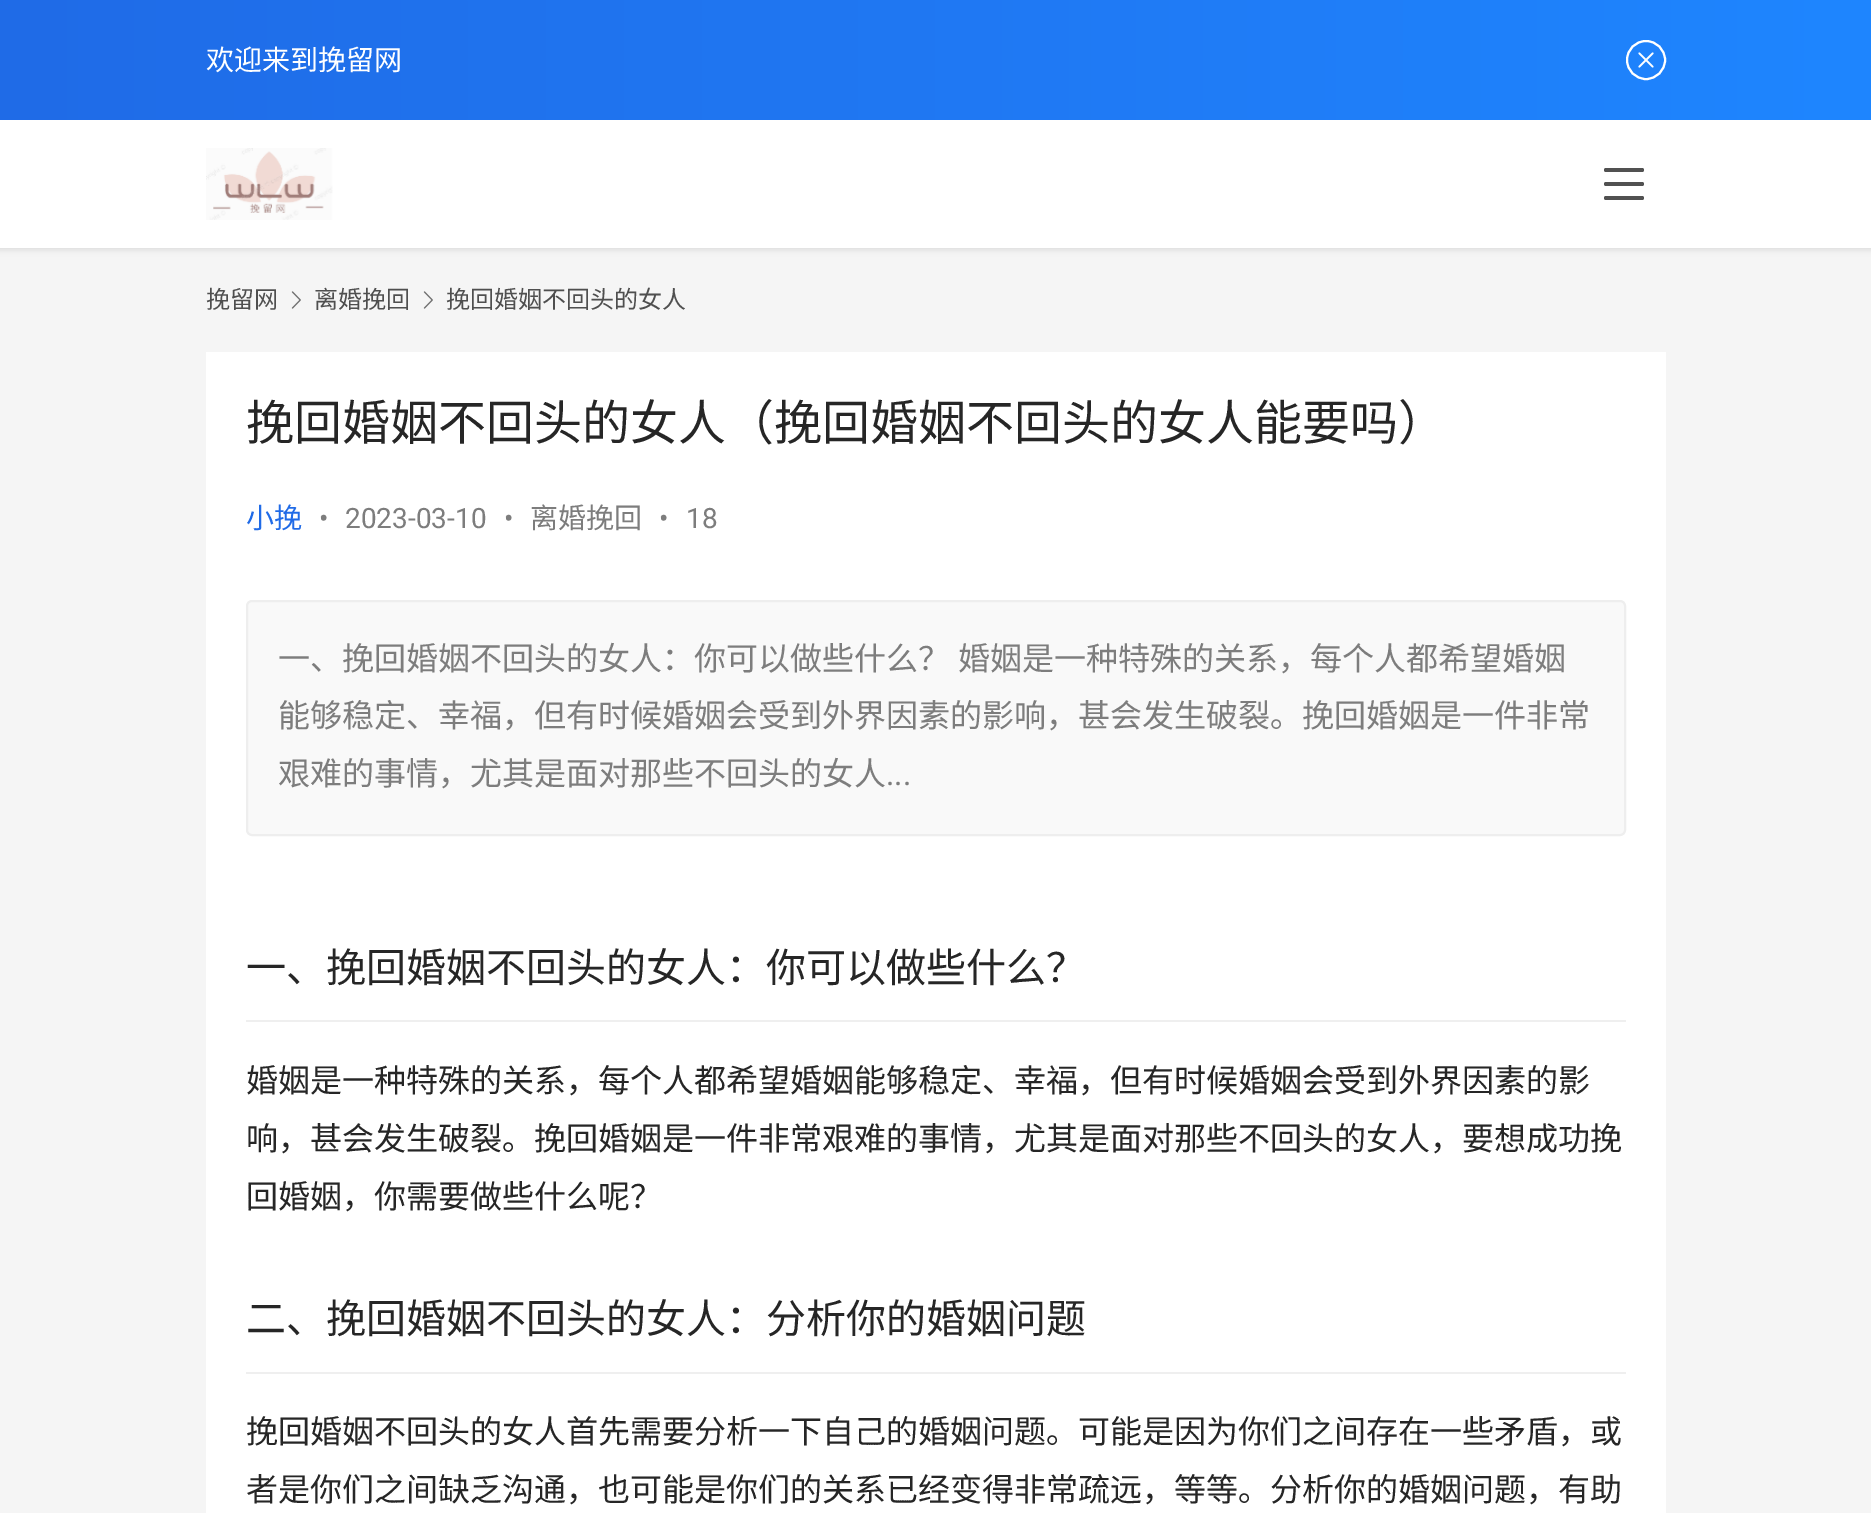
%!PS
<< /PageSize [1871 1513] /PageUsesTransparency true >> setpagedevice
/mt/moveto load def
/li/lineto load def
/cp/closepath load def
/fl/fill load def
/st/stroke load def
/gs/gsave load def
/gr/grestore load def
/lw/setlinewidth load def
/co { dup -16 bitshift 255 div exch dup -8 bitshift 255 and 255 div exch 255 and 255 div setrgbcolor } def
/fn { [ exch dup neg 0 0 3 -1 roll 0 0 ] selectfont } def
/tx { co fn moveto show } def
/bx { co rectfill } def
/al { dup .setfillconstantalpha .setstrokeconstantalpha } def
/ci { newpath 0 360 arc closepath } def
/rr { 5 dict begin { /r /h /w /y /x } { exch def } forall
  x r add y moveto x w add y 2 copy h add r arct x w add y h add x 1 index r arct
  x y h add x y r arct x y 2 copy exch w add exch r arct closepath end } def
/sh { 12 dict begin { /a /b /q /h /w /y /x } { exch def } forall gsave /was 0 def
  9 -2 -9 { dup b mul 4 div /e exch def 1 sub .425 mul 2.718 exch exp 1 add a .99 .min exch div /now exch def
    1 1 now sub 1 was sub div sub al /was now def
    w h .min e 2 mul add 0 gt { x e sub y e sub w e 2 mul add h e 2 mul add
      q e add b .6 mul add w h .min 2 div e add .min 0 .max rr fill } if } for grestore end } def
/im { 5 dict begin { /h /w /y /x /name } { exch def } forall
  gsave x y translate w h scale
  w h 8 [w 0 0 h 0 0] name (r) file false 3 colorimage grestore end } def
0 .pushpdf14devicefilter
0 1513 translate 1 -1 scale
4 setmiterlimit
0 0 1871 1513 16#F5F5F5 bx
16#000000 co
-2 118 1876 132 0 3 .1 sh
gs 0 0 mt 1871 0 li 1871 120 li 0 120 li cp clip newpath
<< /ShadingType 2 /ColorSpace /DeviceRGB /Coords [0 60 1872 60] /Extend [true true] /Function << /FunctionType 2 /Domain [0 1] /C0 [.125 .42 .906] /C1 [.118 .525 1] /N 1 >> >> shfill gr
16#FFFFFF co
2 lw
1646 60 19 ci st
(media/1.raw) 1638 52 16 16 im
0 120 1871 128 16#FFFFFF bx
(media/2.raw) 206 148 127 72 im
16#515151 co
1604 168 40 4 2 rr fl
1604 182 40 4 2 rr fl
1604 196 40 4 2 rr fl
(media/3.raw) 291 291 10 18 im
(media/3.raw) 423 291 10 18 im
206 352 1460 1161 16#FFFFFF bx
16#F9F9F9 co
247 601 1378 234 5 rr gs fl gr
16#EEEEEE co
st
246 1020 1380 2 16#EFEFEF bx
246 1372 1380 2 16#EFEFEF bx
(欢迎来到挽留网) 206 70 /NotoSansCJKSC-Regular 28 16#FFFFFF tx
(挽留网) 206 308 /NotoSansCJKSC-Regular 24 16#4F4F4F tx
(离婚挽回) 314 308 /NotoSansCJKSC-Regular 24 16#4F4F4F tx
(挽回婚姻不回头的女人) 446 308 /NotoSansCJKSC-Regular 24 16#4F4F4F tx
(挽回婚姻不回头的女人（挽回婚姻不回头的女人能要吗）) 246 440 /NotoSansCJKSC-Regular 48 16#262626 tx
(小挽) 246 528 /NotoSansCJKSC-Regular 28 16#206BE7 tx
(•) 319 528 /Roboto-Regular 28 16#7D7D7D tx
(2023-03-10) 345 528 /Roboto-Regular 28 16#7D7D7D tx
(•) 504 528 /Roboto-Regular 28 16#7D7D7D tx
(离婚挽回) 530 528 /NotoSansCJKSC-Regular 28 16#7D7D7D tx
(•) 659 528 /Roboto-Regular 28 16#7D7D7D tx
(18) 686 528 /Roboto-Regular 28 16#7D7D7D tx
/NotoSansCJKSC-Regular 32 fn
278 670 mt 1 0 32 (一、挽回婚姻不回头的女人：你可以做些什么？ 婚姻是一种特殊的关系，每个人都希望婚姻) widthshow
(能够稳定、幸福，但有时候婚姻会受到外界因素的影响，甚会发生破裂。挽回婚姻是一件非常) 278 727 /NotoSansCJKSC-Regular 32 16#7D7D7D tx
(艰难的事情，尤其是面对那些不回头的女人) 278 785 /NotoSansCJKSC-Regular 32 16#7D7D7D tx
(...) 886 785 /Roboto-Regular 32 16#7D7D7D tx
(一、挽回婚姻不回头的女人：你可以做些什么？) 246 982 /NotoSansCJKSC-Regular 40 16#262626 tx
(婚姻是一种特殊的关系，每个人都希望婚姻能够稳定、幸福，但有时候婚姻会受到外界因素的影) 246 1092 /NotoSansCJKSC-Regular 32 16#262626 tx
(响，甚会发生破裂。挽回婚姻是一件非常艰难的事情，尤其是面对那些不回头的女人，要想成功挽) 246 1150 /NotoSansCJKSC-Regular 32 16#262626 tx
(回婚姻，你需要做些什么呢？) 246 1208 /NotoSansCJKSC-Regular 32 16#262626 tx
(二、挽回婚姻不回头的女人：分析你的婚姻问题) 246 1333 /NotoSansCJKSC-Regular 40 16#262626 tx
(挽回婚姻不回头的女人首先需要分析一下自己的婚姻问题。可能是因为你们之间存在一些矛盾，或) 246 1443 /NotoSansCJKSC-Regular 32 16#262626 tx
(者是你们之间缺乏沟通，也可能是你们的关系已经变得非常疏远，等等。分析你的婚姻问题，有助) 246 1501 /NotoSansCJKSC-Regular 32 16#262626 tx
.poppdf14devicefilter showpage
